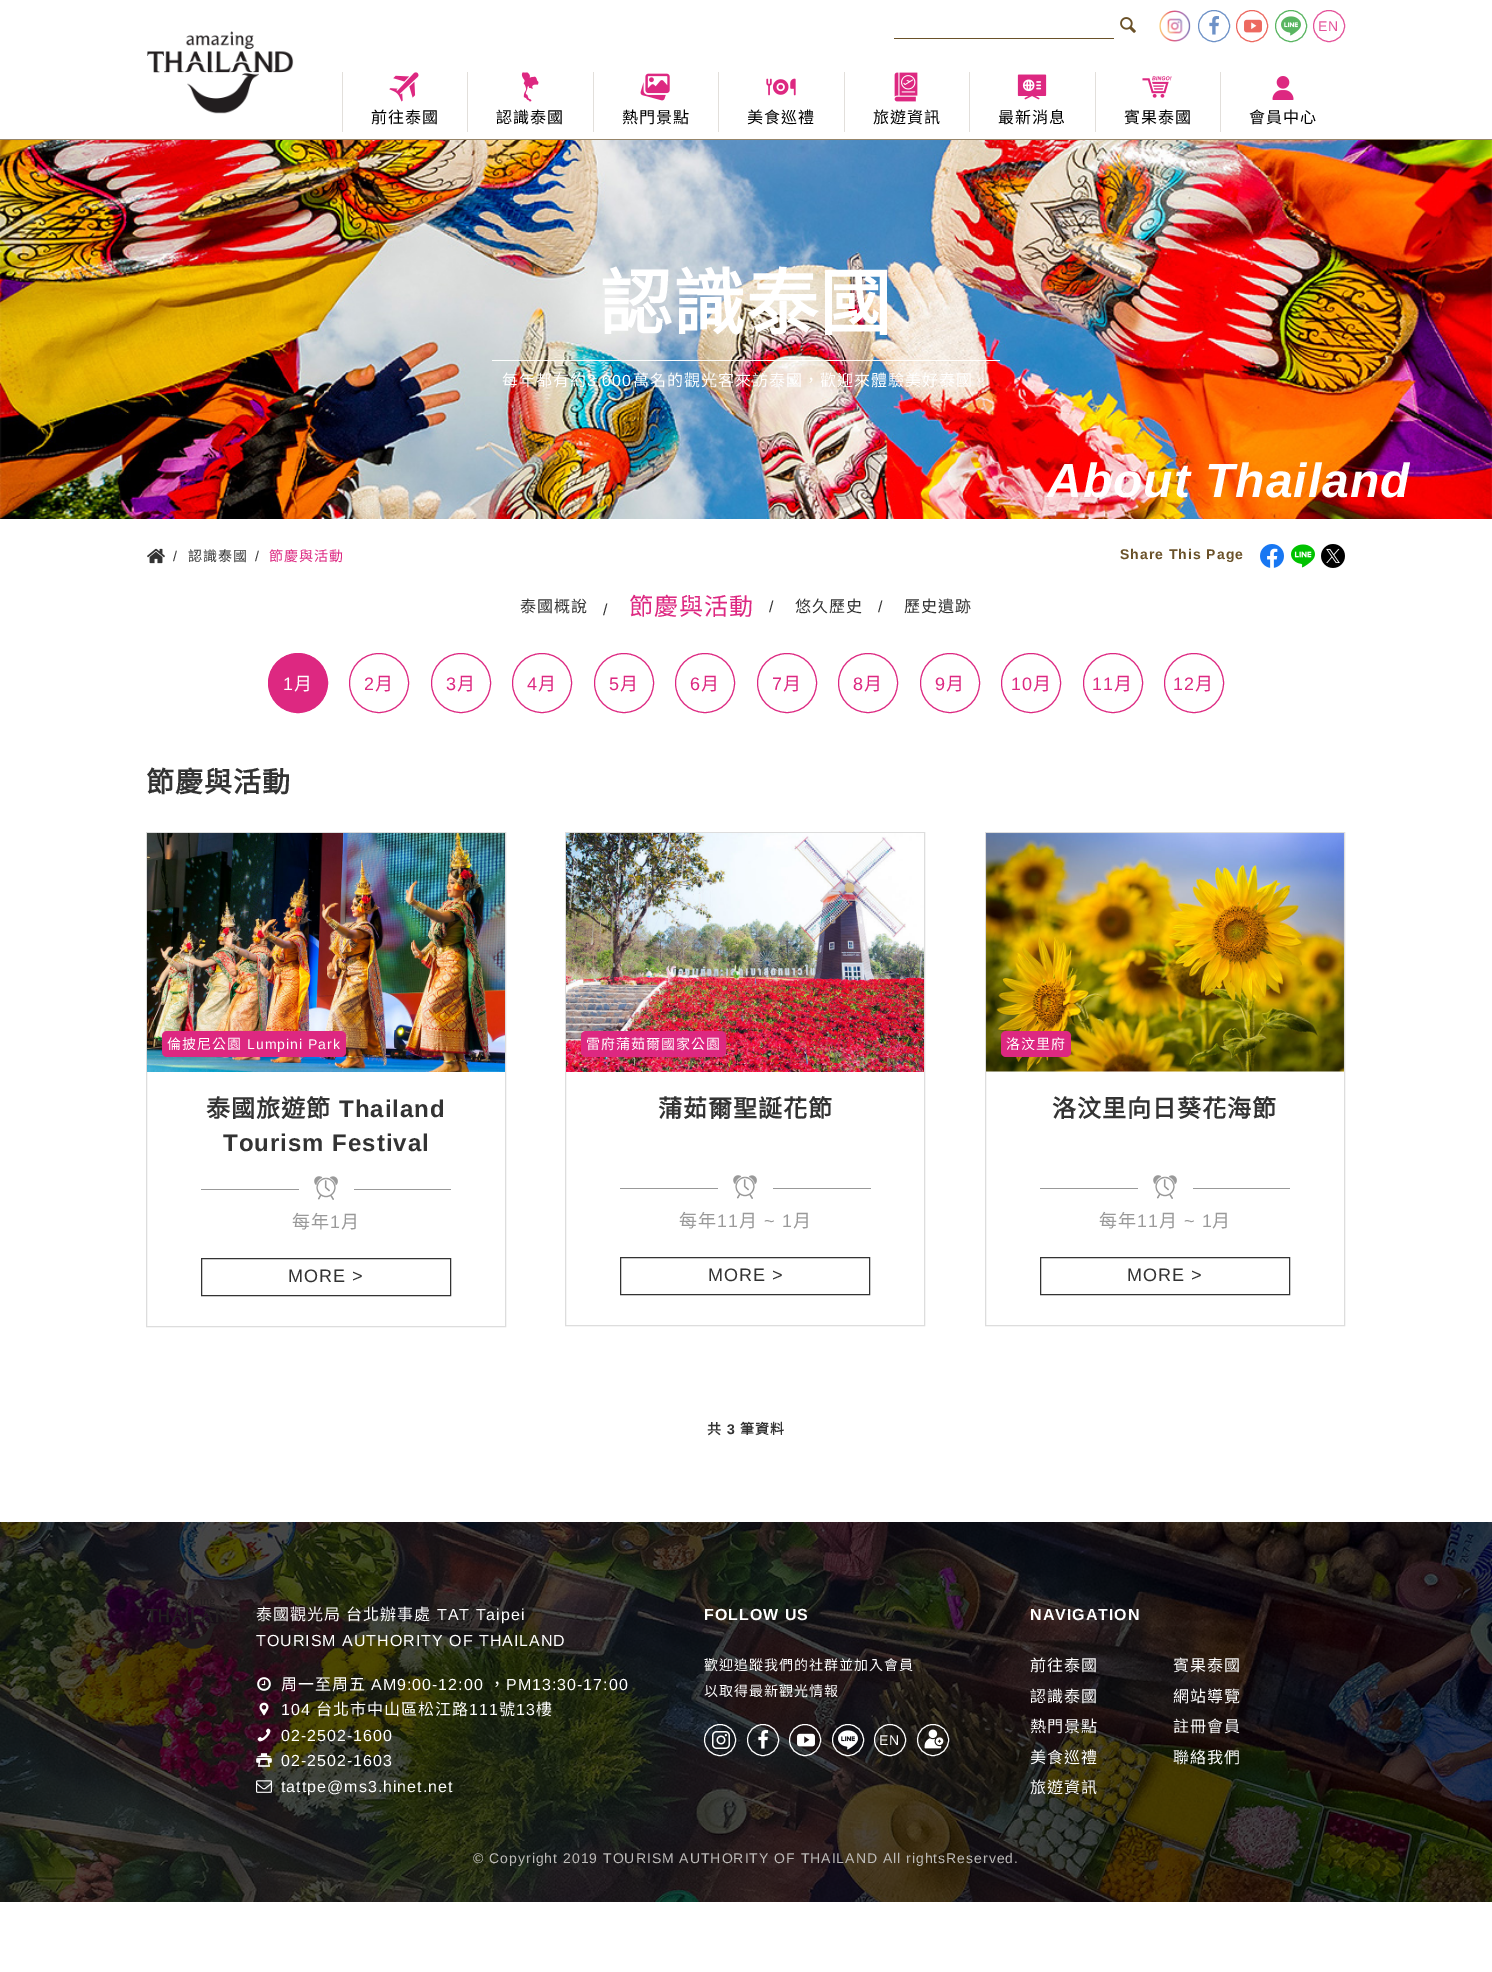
%!PS
<< /PageSize [1492 1972] >> setpagedevice
/mt/moveto load def
/fl/fill load def
/st/stroke load def
/gs/gsave load def
/gr/grestore load def
/co { dup -16 bitshift 255 div exch dup -8 bitshift 255 and 255 div exch 255 and 255 div setrgbcolor } def
/fn { [ exch dup neg 0 0 3 -1 roll 0 0 ] selectfont } def
/bx { co rectfill } def
/ci { newpath 0 360 arc closepath } def
/rr { 5 dict begin { /r /h /w /y /x } { exch def } forall
  x r add y moveto x w add y 2 copy h add r arct x w add y h add x 1 index r arct
  x y h add x y r arct x y 2 copy exch w add exch r arct closepath end } def
/im { 5 dict begin { /h /w /y /x /name } { exch def } forall
  gsave x y translate w h scale
  w h 8 [w 0 0 h 0 0] name (r) file false 3 colorimage grestore end } def
0 1972 translate 1 -1 scale
4 setmiterlimit
0 0 1492 1972 16#FFFFFF bx
0 139 1492 1 16#978569 bx
(media/1.raw) 1120 17 16 16 im
894 38 220 1 16#6A5128 bx
(media/2.raw) 1159 10 32 32 im
16#6D91C7 co
1214 26 15.5 ci st
(media/3.raw) 1209 16 10 19 im
16#ED6960 co
1252 26 15.5 ci st
(media/4.raw) 1244 19 18 14 im
16#59B561 co
1291 26 15.5 ci st
(media/5.raw) 1281 16 20 20 im
16#E4539A co
1329 26 15.5 ci st
(media/6.raw) 147 31 147 83 im
342 72 1 60 16#E2DFDB bx
(media/7.raw) 389 72 30 30 im
467 72 1 60 16#E2DFDB bx
(media/8.raw) 521 72 18 30 im
593 72 1 60 16#E2DFDB bx
(media/9.raw) 640 73 30 28 im
718 72 1 60 16#E2DFDB bx
(media/10.raw) 766 78 30 18 im
844 72 1 60 16#E2DFDB bx
(media/11.raw) 894 72 24 30 im
969 72 1 60 16#E2DFDB bx
(media/12.raw) 1017 74 30 26 im
1095 72 1 60 16#E2DFDB bx
(media/13.raw) 1142 76 30 22 im
1220 72 1 60 16#E2DFDB bx
(media/14.raw) 1272 76 22 24 im
(media/15.raw) 0 140 1492 379 im
492 360 508 1 16#FFFFFF bx
(media/16.raw) 1260 544 24 24 im
(media/17.raw) 1291 544 24 24 im
(media/18.raw) 1321 544 24 24 im
16#DD2881 co
298 683 29.5 ci gs fl gr
st
379 683 29.5 ci st
461 683 29.5 ci st
542 683 29.5 ci st
624 683 29.5 ci st
705 683 29.5 ci st
787 683 29.5 ci st
868 683 29.5 ci st
950 683 29.5 ci st
1031 683 29.5 ci st
1113 683 29.5 ci st
1194 683 29.5 ci st
16#DDDDDD co
146.5 832.5 359 494 rectstroke
(media/19.raw) 147 833 358 239 im
16#DD2881 co
162 1031 184 26 5 rr fl
201 1189 250 1 16#999999 bx
299 1189 55 1 16#FFFFFF bx
(media/20.raw) 314 1176 24 24 im
16#333333 co
201.5 1258.5 249 37 rectstroke
16#DDDDDD co
565.5 832.5 359 493 rectstroke
(media/21.raw) 566 833 358 239 im
16#DD2881 co
581 1031 145 26 5 rr fl
620 1188 251 1 16#999999 bx
718 1188 55 1 16#FFFFFF bx
(media/20.raw) 733 1175 24 24 im
16#333333 co
620.5 1257.5 249 37 rectstroke
16#DDDDDD co
985.5 832.5 359 493 rectstroke
(media/22.raw) 986 833 358 239 im
16#DD2881 co
1001 1031 70 26 5 rr fl
1040 1188 250 1 16#999999 bx
1138 1188 55 1 16#FFFFFF bx
(media/20.raw) 1153 1175 24 24 im
16#333333 co
1040.5 1257.5 249 37 rectstroke
(media/23.raw) 147 548 18 16 im
(media/24.raw) 0 1522 1492 380 im
(media/25.raw) 147 1596 93 53 im
(media/26.raw) 257 1677 14 14 im
(media/27.raw) 259 1702 10 14 im
(media/28.raw) 257 1728 14 14 im
(media/29.raw) 256 1753 16 14 im
(media/30.raw) 256 1780 16 13 im
16#FFFFFF co
720 1740 15.5 ci st
(media/31.raw) 712 1731 18 18 im
763 1740 15.5 ci st
(media/32.raw) 758 1730 10 19 im
805 1740 15.5 ci st
(media/33.raw) 797 1733 18 14 im
848 1740 15.5 ci st
(media/34.raw) 838 1730 20 20 im
890 1740 15.5 ci st
933 1740 15.5 ci st
(media/35.raw) 924 1729 20 20 im
/LiberationSans-Regular 14 fn
16#E4539A co
1318 31 mt 1 0 (EN) ashow
/NotoSansCJKTC-Regular 16 fn
16#000000 co
371 123 mt 1 0 (前往泰國) ashow
496 123 mt 1 0 (認識泰國) ashow
622 123 mt 1 0 (熱門景點) ashow
747 123 mt 1 0 (美食巡禮) ashow
873 123 mt 1 0 (旅遊資訊) ashow
998 123 mt 1 0 (最新消息) ashow
1124 123 mt 1 0 (賓果泰國) ashow
1249 123 mt 1 0 (會員中心) ashow
/NotoSansCJKTC-Bold 72 fn
16#FFFFFF co
600 329 mt 1 0 (認識泰國) ashow
/NotoSansCJKTC-Regular 16 fn
502 386 mt 1 0 (每年都有約) ashow
/LiberationSans-Regular 16 fn
587 386 mt 1 0 (3,000) ashow
/NotoSansCJKTC-Regular 16 fn
633 386 mt 1 0 (萬名的觀光客來訪泰國，歡迎來體驗美好泰國。) ashow
/LiberationSans-BoldItalic 48 fn
1047 497 mt 1 0 (About Thailand) ashow
/LiberationSans-Bold 14 fn
16#6A5128 co
1120 559 mt 1 0 (Share This Page) ashow
/NotoSansCJKTC-Regular 16 fn
16#333333 co
520 612 mt 1 0 (泰國概說) ashow
/LiberationSans-Regular 16 fn
603 615 mt 1 0 (/) ashow
/NotoSansCJKTC-Regular 24 fn
16#DD2881 co
629 615 mt 1 0 (節慶與活動) ashow
/LiberationSans-Regular 16 fn
16#333333 co
769 612 mt 1 0 (/) ashow
/NotoSansCJKTC-Regular 16 fn
795 612 mt 1 0 (悠久歷史) ashow
/LiberationSans-Regular 16 fn
878 612 mt 1 0 (/) ashow
/NotoSansCJKTC-Regular 16 fn
904 612 mt 1 0 (歷史遺跡) ashow
/LiberationSans-Regular 18 fn
16#FFFFFF co
283 690 mt 1 0 (1) ashow
/NotoSansCJKTC-Regular 18 fn
294 690 mt 1 0 (月) ashow
/LiberationSans-Regular 18 fn
16#DD2881 co
364 690 mt 1 0 (2) ashow
/NotoSansCJKTC-Regular 18 fn
375 690 mt 1 0 (月) ashow
/LiberationSans-Regular 18 fn
446 690 mt 1 0 (3) ashow
/NotoSansCJKTC-Regular 18 fn
457 690 mt 1 0 (月) ashow
/LiberationSans-Regular 18 fn
527 690 mt 1 0 (4) ashow
/NotoSansCJKTC-Regular 18 fn
538 690 mt 1 0 (月) ashow
/LiberationSans-Regular 18 fn
609 690 mt 1 0 (5) ashow
/NotoSansCJKTC-Regular 18 fn
620 690 mt 1 0 (月) ashow
/LiberationSans-Regular 18 fn
690 690 mt 1 0 (6) ashow
/NotoSansCJKTC-Regular 18 fn
701 690 mt 1 0 (月) ashow
/LiberationSans-Regular 18 fn
772 690 mt 1 0 (7) ashow
/NotoSansCJKTC-Regular 18 fn
783 690 mt 1 0 (月) ashow
/LiberationSans-Regular 18 fn
853 690 mt 1 0 (8) ashow
/NotoSansCJKTC-Regular 18 fn
864 690 mt 1 0 (月) ashow
/LiberationSans-Regular 18 fn
935 690 mt 1 0 (9) ashow
/NotoSansCJKTC-Regular 18 fn
946 690 mt 1 0 (月) ashow
/LiberationSans-Regular 18 fn
1011 690 mt 1 0 (10) ashow
/NotoSansCJKTC-Regular 18 fn
1033 690 mt 1 0 (月) ashow
/LiberationSans-Regular 18 fn
1092 690 mt 1 0 (11) ashow
/NotoSansCJKTC-Regular 18 fn
1114 690 mt 1 0 (月) ashow
/LiberationSans-Regular 18 fn
1173 690 mt 1 0 (12) ashow
/NotoSansCJKTC-Regular 18 fn
1195 690 mt 1 0 (月) ashow
/NotoSansCJKTC-Bold 28 fn
16#333333 co
146 792 mt 1 0 (節慶與活動) ashow
/NotoSansCJKTC-Regular 14 fn
16#FFFFFF co
167 1049 mt 1 0 (倫披尼公園) ashow
/LiberationSans-Regular 14 fn
247 1049 mt 1 0 (Lumpini Park) ashow
/NotoSansCJKTC-Bold 24 fn
16#333333 co
206 1117 mt 1 0 (泰國旅遊節) ashow
/LiberationSans-Bold 24 fn
339 1117 mt 1 0 (Thailand) ashow
223 1151 mt 1 0 (Tourism Festival) ashow
/NotoSansCJKTC-Regular 18 fn
16#999999 co
292 1228 mt 1 0 (每年) ashow
/LiberationSans-Regular 18 fn
330 1228 mt 1 0 (1) ashow
/NotoSansCJKTC-Regular 18 fn
341 1228 mt 1 0 (月) ashow
/LiberationSans-Regular 18 fn
16#333333 co
288 1282 mt 1 0 (MORE >) ashow
/NotoSansCJKTC-Regular 14 fn
16#FFFFFF co
586 1049 mt 1 0 (雷府蒲茹爾國家公園) ashow
/NotoSansCJKTC-Bold 24 fn
16#333333 co
658 1117 mt 1 0 (蒲茹爾聖誕花節) ashow
/NotoSansCJKTC-Regular 18 fn
16#999999 co
679 1227 mt 1 0 (每年) ashow
/LiberationSans-Regular 18 fn
717 1227 mt 1 0 (11) ashow
/NotoSansCJKTC-Regular 18 fn
739 1227 mt 1 0 (月) ashow
/LiberationSans-Regular 18 fn
764 1227 mt 1 0 (~ 1) ashow
/NotoSansCJKTC-Regular 18 fn
793 1227 mt 1 0 (月) ashow
/LiberationSans-Regular 18 fn
16#333333 co
708 1281 mt 1 0 (MORE >) ashow
/NotoSansCJKTC-Regular 14 fn
16#FFFFFF co
1006 1049 mt 1 0 (洛汶里府) ashow
/NotoSansCJKTC-Bold 24 fn
16#333333 co
1052 1117 mt 1 0 (洛汶里向日葵花海節) ashow
/NotoSansCJKTC-Regular 18 fn
16#999999 co
1099 1227 mt 1 0 (每年) ashow
/LiberationSans-Regular 18 fn
1137 1227 mt 1 0 (11) ashow
/NotoSansCJKTC-Regular 18 fn
1159 1227 mt 1 0 (月) ashow
/LiberationSans-Regular 18 fn
1184 1227 mt 1 0 (~ 1) ashow
/NotoSansCJKTC-Regular 18 fn
1212 1227 mt 1 0 (月) ashow
/LiberationSans-Regular 18 fn
16#333333 co
1127 1281 mt 1 0 (MORE >) ashow
/NotoSansCJKTC-Bold 14 fn
707 1434 mt 1 0 (共) ashow
/LiberationSans-Bold 14 fn
727 1434 mt 1 0 (3) ashow
/NotoSansCJKTC-Bold 14 fn
740 1434 mt 1 0 (筆資料) ashow
/LiberationSans-Regular 14 fn
173 561 mt 1 0 (/) ashow
/NotoSansCJKTC-Regular 14 fn
188 561 mt 1 0 (認識泰國) ashow
/LiberationSans-Regular 14 fn
255 561 mt 1 0 (/) ashow
/NotoSansCJKTC-Regular 14 fn
16#DD2881 co
269 561 mt 1 0 (節慶與活動) ashow
/NotoSansCJKTC-Regular 16 fn
16#FFFFFF co
256 1620 mt 1 0 (泰國觀光局) ashow
346 1620 mt 1 0 (台北辦事處) ashow
/LiberationSans-Regular 16 fn
437 1620 mt 1 0 (TAT Taipei) ashow
256 1646 mt 1 0 (TOURISM AUTHORITY OF THAILAND) ashow
/NotoSansCJKTC-Regular 16 fn
281 1690 mt 1 0 (周一至周五) ashow
/LiberationSans-Regular 16 fn
371 1690 mt 1 0 (AM9:00-12:00) ashow
/NotoSansCJKTC-Regular 16 fn
489 1690 mt 1 0 (，) ashow
/LiberationSans-Regular 16 fn
506 1690 mt 1 0 (PM13:30-17:00) ashow
281 1715 mt 1 0 (104) ashow
/NotoSansCJKTC-Regular 16 fn
316 1715 mt 1 0 (台北市中山區松江路) ashow
/LiberationSans-Regular 16 fn
469 1715 mt 1 0 (111) ashow
/NotoSansCJKTC-Regular 16 fn
499 1715 mt 1 0 (號) ashow
/LiberationSans-Regular 16 fn
516 1715 mt 1 0 (13) ashow
/NotoSansCJKTC-Regular 16 fn
536 1715 mt 1 0 (樓) ashow
/LiberationSans-Regular 16 fn
281 1741 mt 1 0 (02-2502-1600) ashow
281 1766 mt 1 0 (02-2502-1603) ashow
281 1792 mt 1 0 (tattpe@ms3.hinet.net) ashow
/LiberationSans-Bold 16 fn
704 1620 mt 1 0 (FOLLOW US) ashow
/NotoSansCJKTC-Regular 14 fn
704 1670 mt 1 0 (歡迎追蹤我們的社群並加入會員) ashow
704 1696 mt 1 0 (以取得最新觀光情報) ashow
/LiberationSans-Regular 14 fn
879 1745 mt 1 0 (EN) ashow
/LiberationSans-Bold 16 fn
1030 1620 mt 1 0 (NAVIGATION) ashow
/NotoSansCJKTC-Regular 16 fn
1030 1671 mt 1 0 (前往泰國) ashow
1173 1671 mt 1 0 (賓果泰國) ashow
1030 1702 mt 1 0 (認識泰國) ashow
1173 1702 mt 1 0 (網站導覽) ashow
1030 1732 mt 1 0 (熱門景點) ashow
1173 1732 mt 1 0 (註冊會員) ashow
1030 1763 mt 1 0 (美食巡禮) ashow
1173 1763 mt 1 0 (聯絡我們) ashow
1030 1793 mt 1 0 (旅遊資訊) ashow
/LiberationSans-Regular 14 fn
16#BEBCBA co
473 1863 mt 1 0 (© Copyright 2019 TOURISM AUTHORITY OF THAILAND All rightsReserved.) ashow
showpage
